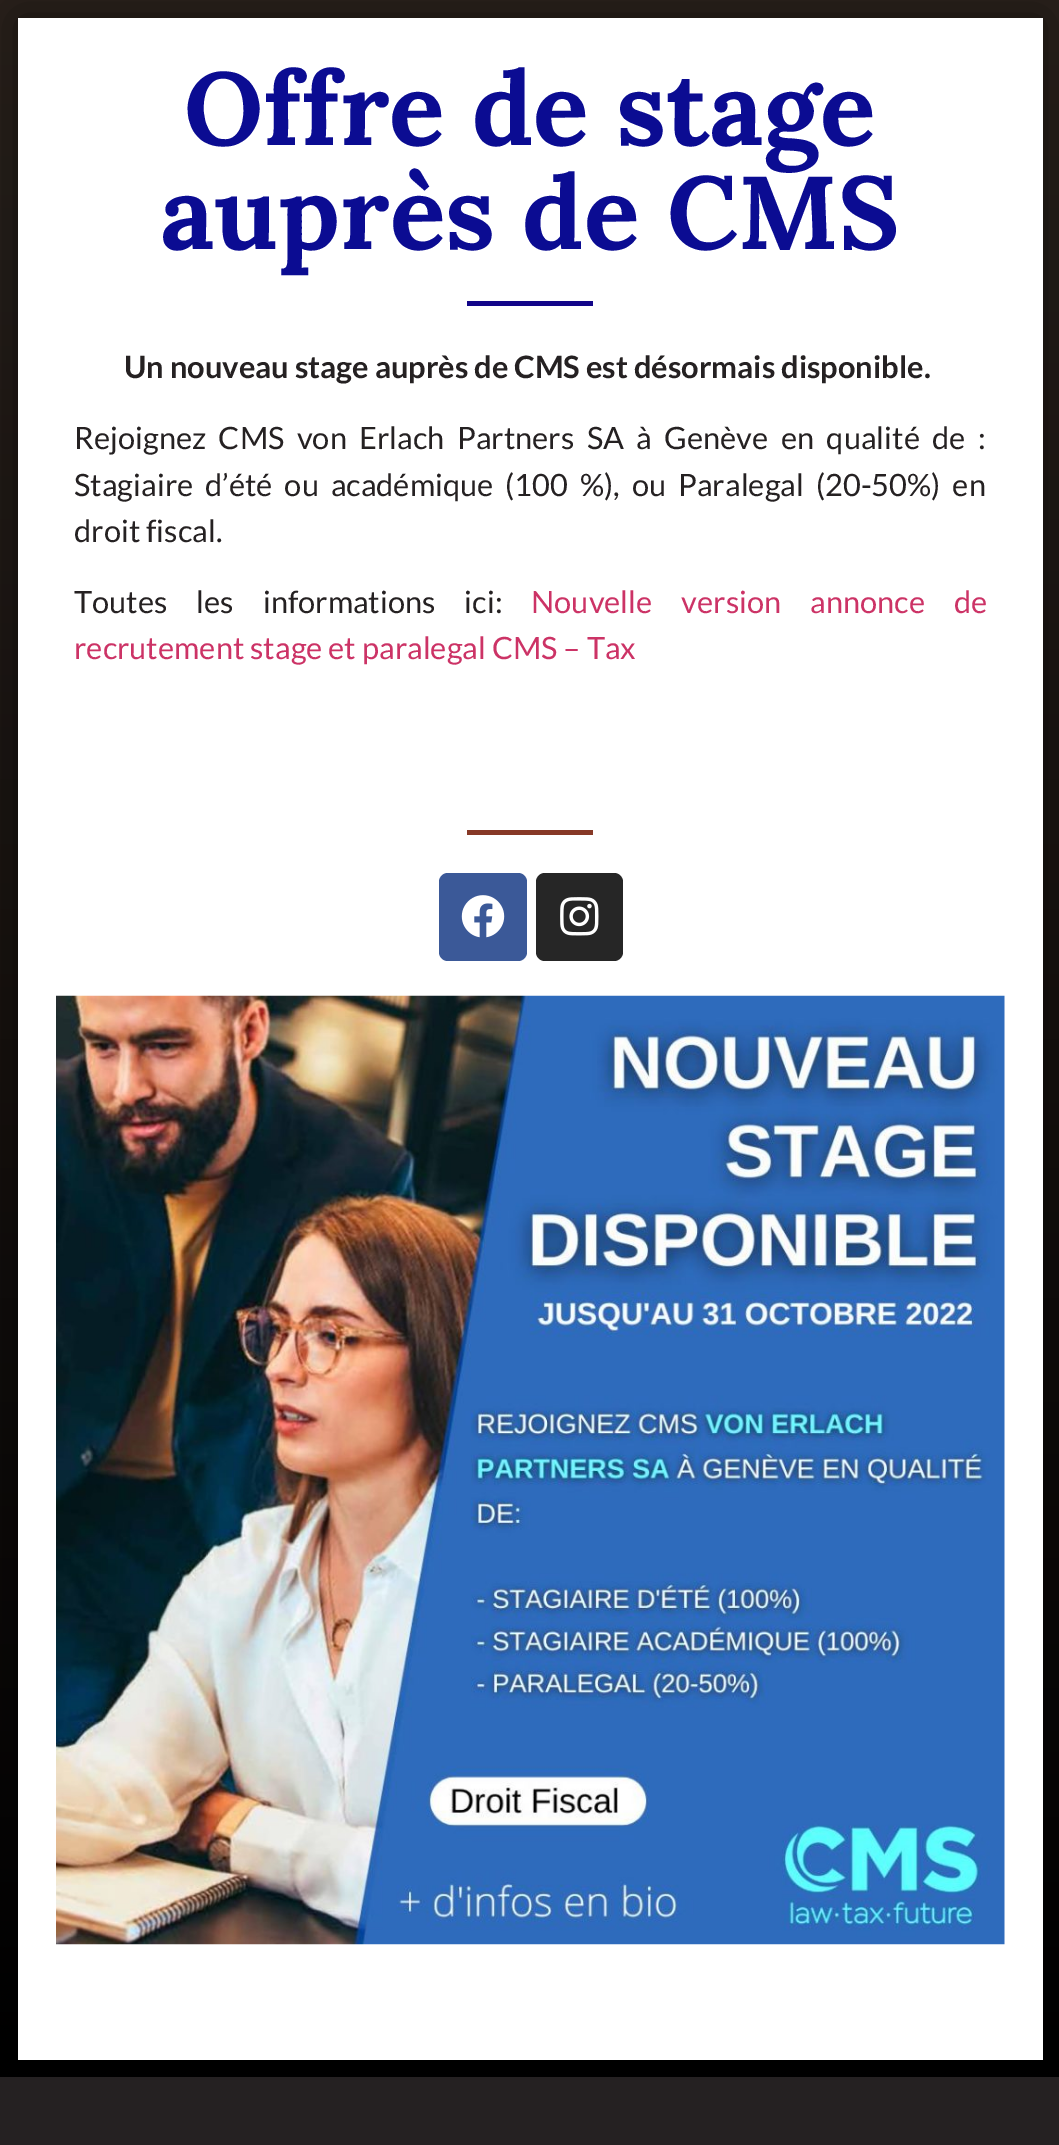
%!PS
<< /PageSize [1059 2145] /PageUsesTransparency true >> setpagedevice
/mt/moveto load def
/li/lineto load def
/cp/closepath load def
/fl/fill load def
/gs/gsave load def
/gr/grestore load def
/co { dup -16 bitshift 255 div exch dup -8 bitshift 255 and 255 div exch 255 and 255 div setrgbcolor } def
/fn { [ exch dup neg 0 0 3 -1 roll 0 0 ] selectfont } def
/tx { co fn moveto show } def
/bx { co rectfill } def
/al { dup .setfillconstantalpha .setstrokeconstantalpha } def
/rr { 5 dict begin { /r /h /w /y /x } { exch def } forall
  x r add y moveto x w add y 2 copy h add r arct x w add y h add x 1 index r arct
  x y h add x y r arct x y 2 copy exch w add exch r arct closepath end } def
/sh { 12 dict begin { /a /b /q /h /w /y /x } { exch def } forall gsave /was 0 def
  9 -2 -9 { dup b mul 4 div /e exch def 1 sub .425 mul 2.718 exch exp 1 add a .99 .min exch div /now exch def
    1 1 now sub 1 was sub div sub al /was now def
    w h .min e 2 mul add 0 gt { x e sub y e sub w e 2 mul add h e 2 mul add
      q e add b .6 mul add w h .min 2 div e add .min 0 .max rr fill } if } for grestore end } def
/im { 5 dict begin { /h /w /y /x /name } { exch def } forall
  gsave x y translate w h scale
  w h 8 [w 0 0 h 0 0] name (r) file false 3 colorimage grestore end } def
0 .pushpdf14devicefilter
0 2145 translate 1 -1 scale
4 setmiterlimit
0 0 1059 2145 16#FFFFFF bx
gs 0 0 mt 1059 0 li 1059 2077 li 0 2077 li cp clip newpath
<< /ShadingType 2 /ColorSpace /DeviceRGB /Coords [530 0 530 2077] /Extend [true true] /Function << /FunctionType 2 /Domain [0 1] /C0 [.169 .133 .11] /C1 [0 0 0] /N 1 >> >> shfill gr
16#000000 co
18 18 1025 2042 0 22 .5 sh
18 18 1025 2042 16#FFFFFF bx
467 301 126 5 16#120589 bx
467 830 126 5 16#873927 bx
16#3B5998 co
439 873 88 88 9 rr fl
(media/1.raw) 461 895 44 43 im
16#262626 co
536 873 87 88 9 rr fl
(media/2.raw) 560 897 39 39 im
(media/3.raw) 56 995 949 950 im
0 2077 1059 68 16#252122 bx
(Offre de stage) 184 145 /Lora-Bold 103.25 16#0B0C92 tx
(auprès de CMS) 160 249 /Lora-Bold 103.25 16#0B0C92 tx
(Un nouveau stage auprès de CMS est désormais disponible.) 124 378 /Lato-Bold 30.8 16#252122 tx
/Lato-Regular 30.8 fn
74 449 mt 6.5 0 32 (Rejoignez CMS von Erlach Partners SA à Genève en qualité de :) widthshow
74 496 mt 6 0 32 (Stagiaire d’été ou académique \(100 %\), ou Paralegal \(20-50%\) en) widthshow
(droit fiscal.) 74 542 /Lato-Regular 30.8 16#252122 tx
74 613 mt 23 0 32 (Toutes les informations ici:) widthshow
16#CC3366 co
531 613 mt 23 0 32 (Nouvelle version annonce de) widthshow
(recrutement stage et paralegal CMS – Tax) 74 659 /Lato-Regular 30.8 16#CC3366 tx
.poppdf14devicefilter showpage
